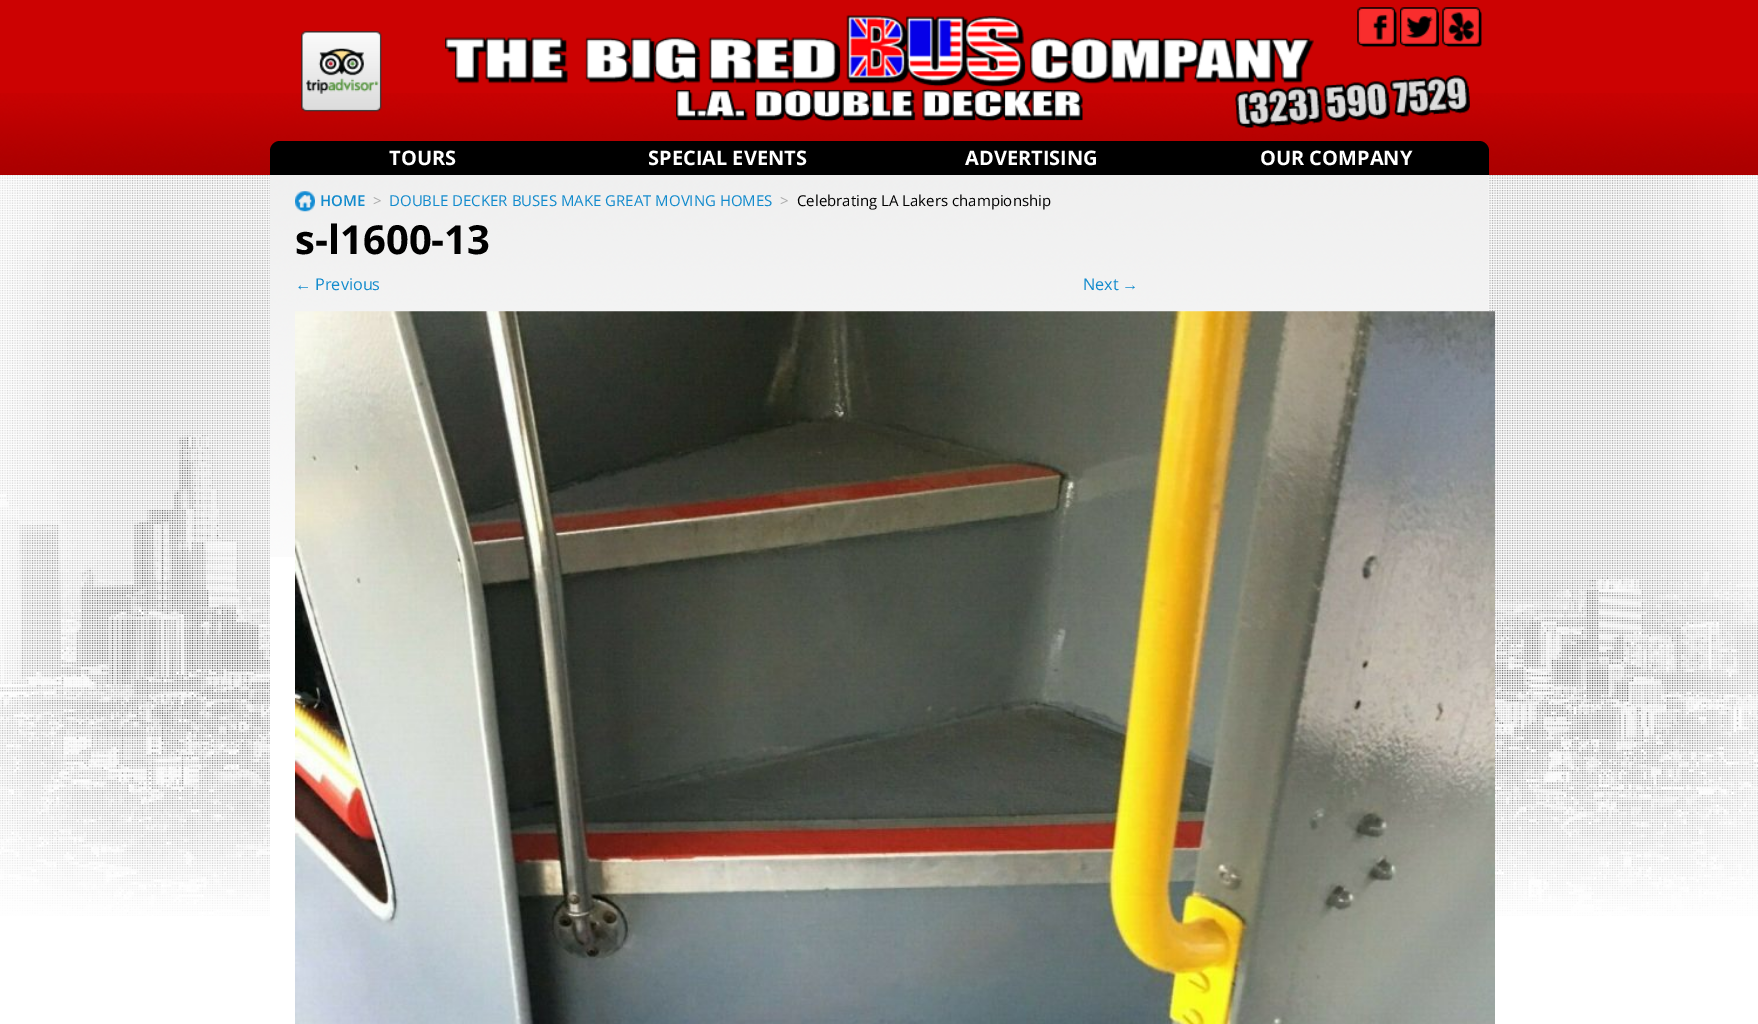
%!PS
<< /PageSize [1758 1024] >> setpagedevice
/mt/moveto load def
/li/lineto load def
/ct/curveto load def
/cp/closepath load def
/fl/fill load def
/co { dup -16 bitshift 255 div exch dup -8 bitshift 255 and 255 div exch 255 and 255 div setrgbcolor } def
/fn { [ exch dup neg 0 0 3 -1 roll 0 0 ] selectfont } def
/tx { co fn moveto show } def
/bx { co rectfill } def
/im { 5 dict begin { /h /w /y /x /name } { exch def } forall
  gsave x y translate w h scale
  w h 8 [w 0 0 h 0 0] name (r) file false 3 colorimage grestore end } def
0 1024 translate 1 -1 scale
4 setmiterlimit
0 0 1758 1024 16#FFFFFF bx
(media/1.raw) 0 175 1758 741 im
0 0 1758 93 16#CC0202 bx
(media/2.raw) 0 93 1758 82 im
(media/3.raw) 301 31 81 81 im
(media/4.raw) 445 15 869 72 im
(media/5.raw) 676 88 407 34 im
(media/6.raw) 1357 7 40 40 im
(media/7.raw) 1357 7 40 40 im
(media/8.raw) 1400 7 39 40 im
(media/9.raw) 1400 7 39 40 im
(media/10.raw) 1442 7 40 40 im
(media/11.raw) 1442 7 40 40 im
(media/12.raw) 1235 75 235 53 im
16#000000 co
280 141 mt 1479 141 li 1484.5 141 1489 145.5 1489 151 ct 1489 175 li 270 175 li 270 151 li 270 145.5 274.5 141 280 141 ct cp fl
270 175 1219 741 16#FFFFFF bx
(media/13.raw) 270 175 1219 382 im
(media/14.raw) 295 191 20 21 im
(media/15.raw) 295 311 1200 713 im
(TOURS) 389 165 /OpenSans-Bold 20 16#FFFFFF tx
(SPECIAL EVENTS) 648 165 /OpenSans-Bold 20 16#FFFFFF tx
(ADVERTISING) 965 165 /OpenSans-Bold 20 16#FFFFFF tx
(OUR COMPANY) 1260 165 /OpenSans-Bold 20 16#FFFFFF tx
(HOME) 320 206 /OpenSans-SemiBold 15 16#128BCD tx
(>) 373 206 /OpenSans-Regular 15 16#AAAAAA tx
(DOUBLE DECKER BUSES MAKE GREAT MOVING HOMES) 389 206 /OpenSans-Regular 15 16#128BCD tx
(>) 780 206 /OpenSans-Regular 15 16#AAAAAA tx
(Celebrating LA Lakers championship) 797 206 /OpenSans-Regular 15 16#000000 tx
(s-l1600-13) 295 254 /OpenSans-Bold 40 16#000000 tx
(←) 295 290 /LiberationSans-Regular 16.25 16#128BCD tx
(Previous) 315 290 /OpenSans-Regular 16.25 16#128BCD tx
(Next) 1083 290 /OpenSans-Regular 16.25 16#128BCD tx
(→) 1122 290 /LiberationSans-Regular 16.25 16#128BCD tx
showpage
